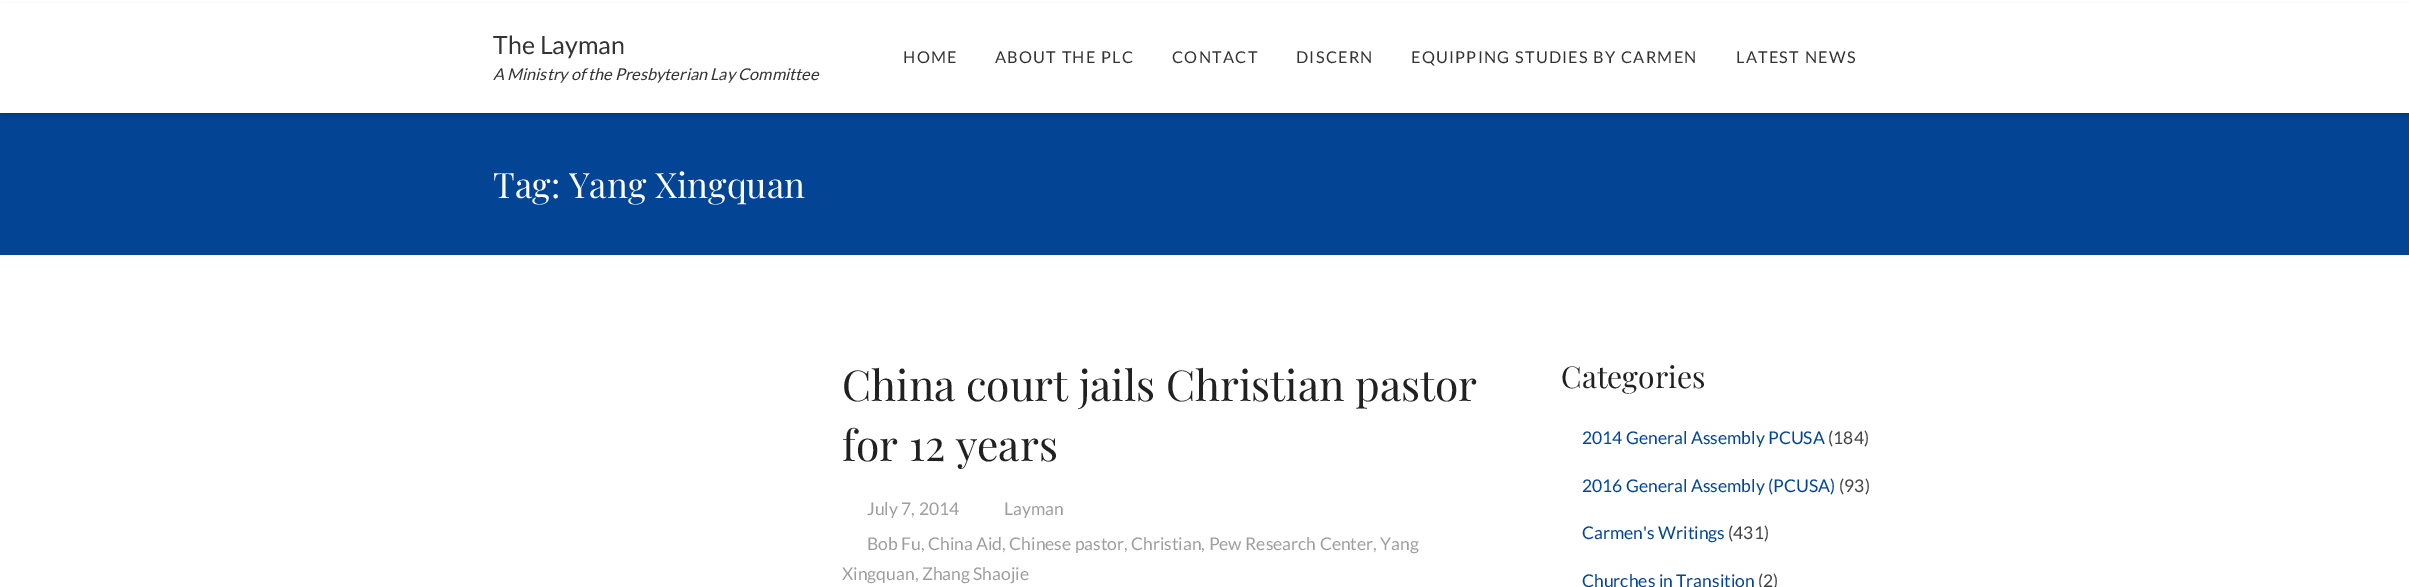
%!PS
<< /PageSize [2409 587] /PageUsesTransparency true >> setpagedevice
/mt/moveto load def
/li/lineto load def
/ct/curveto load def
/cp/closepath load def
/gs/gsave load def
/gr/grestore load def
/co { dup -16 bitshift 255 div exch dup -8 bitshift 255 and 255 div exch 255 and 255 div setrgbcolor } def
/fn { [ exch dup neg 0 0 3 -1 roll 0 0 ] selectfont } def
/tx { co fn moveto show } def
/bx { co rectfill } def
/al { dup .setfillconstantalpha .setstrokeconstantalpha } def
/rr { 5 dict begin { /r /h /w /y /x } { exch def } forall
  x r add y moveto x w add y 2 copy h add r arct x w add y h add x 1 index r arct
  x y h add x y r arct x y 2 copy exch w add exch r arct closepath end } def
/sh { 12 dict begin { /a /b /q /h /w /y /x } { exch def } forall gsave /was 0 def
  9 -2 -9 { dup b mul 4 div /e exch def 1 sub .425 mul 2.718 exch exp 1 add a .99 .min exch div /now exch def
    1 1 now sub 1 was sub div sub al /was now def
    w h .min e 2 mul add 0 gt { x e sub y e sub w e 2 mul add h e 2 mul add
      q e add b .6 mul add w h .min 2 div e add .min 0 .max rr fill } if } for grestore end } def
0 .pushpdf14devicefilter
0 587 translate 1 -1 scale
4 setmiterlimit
0 0 2409 587 16#FFFFFF bx
0 113 2409 141 16#034594 bx
16#000000 co
1 4 2408 110 0 .5 .05 sh
3 8 2405 107 0 3 .22 sh
0 3 2409 110 16#FFFFFF bx
gs
0 0 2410 255 rectclip
16#03428E co
-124 -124 mt 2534 -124 li 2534 379 li -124 379 li cp 0 -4 mt 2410 -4 li 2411 -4 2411 -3 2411 -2 ct 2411 252 li 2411 253 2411 254 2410 254 ct 0 254 li -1 254 -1 253 -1 252 ct -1 -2 li -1 -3 -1 -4 0 -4 ct cp eofill
gr
(The Layman) 493 54 /Lato-Regular 25 16#333333 tx
(A Ministry of the Presbyterian Lay Committee) 493 80 /Lato-Italic 16.25 16#333333 tx
/Lato-Regular 16.25 fn
903 63 mt 1.25 0 (HOME) ashow
995 63 mt 1.25 0 (ABOUT THE PLC) ashow
1172 63 mt 1.25 0 (CONTACT) ashow
1296 63 mt 1.25 0 (DISCERN) ashow
1411 63 mt 1.25 0 (EQUIPPING STUDIES BY CARMEN) ashow
1736 63 mt 1.25 0 (LATEST NEWS) ashow
(Tag: Yang Xingquan) 493 198 /PlayfairDisplay-Regular 35 16#FFFFFF tx
(China court jails Christian pastor) 842 401 /PlayfairDisplay-Regular 42.5 16#212121 tx
(for 12 years) 842 461 /PlayfairDisplay-Regular 42.5 16#212121 tx
(July 7, 2014) 867 515 /Lato-Regular 17.5 16#9E9E9E tx
(Layman) 1004 515 /Lato-Regular 17.5 16#9E9E9E tx
(Bob Fu, China Aid, Chinese pastor, Christian, Pew Research Center, Yang) 867 550 /Lato-Regular 17.5 16#9E9E9E tx
(Xingquan, Zhang Shaojie) 842 580 /Lato-Regular 17.5 16#9E9E9E tx
(Categories) 1561 388 /PlayfairDisplay-Regular 30 16#212121 tx
(2014 General Assembly PCUSA) 1582 444 /Lato-Regular 17.5 16#034594 tx
(\(184\)) 1828 444 /Lato-Regular 17.5 16#424242 tx
(2016 General Assembly \(PCUSA\)) 1582 492 /Lato-Regular 17.5 16#034594 tx
(\(93\)) 1839 492 /Lato-Regular 17.5 16#424242 tx
(Carmen's Writings) 1582 539 /Lato-Regular 17.5 16#034594 tx
(\(431\)) 1728 539 /Lato-Regular 17.5 16#424242 tx
(Churches in Transition) 1582 587 /Lato-Regular 17.5 16#034594 tx
(\(2\)) 1758 587 /Lato-Regular 17.5 16#424242 tx
.poppdf14devicefilter showpage
